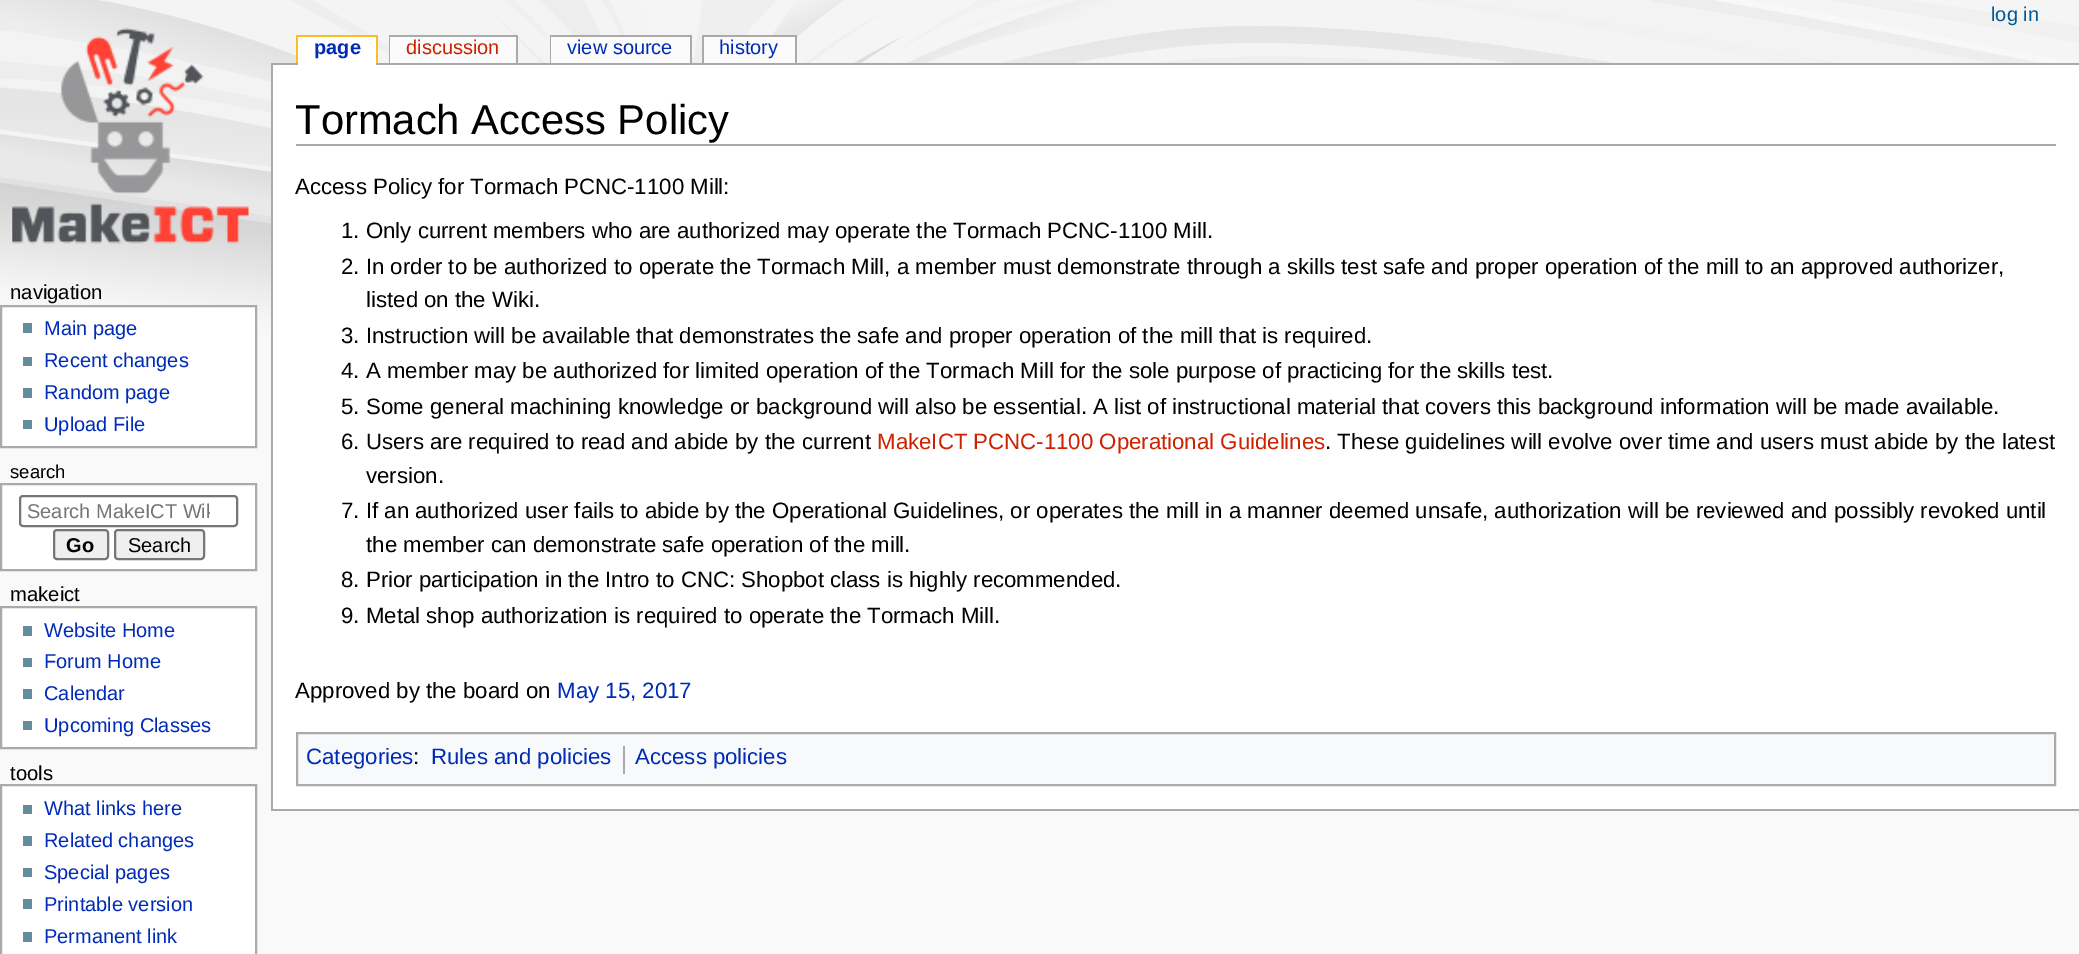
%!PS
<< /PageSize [2079 954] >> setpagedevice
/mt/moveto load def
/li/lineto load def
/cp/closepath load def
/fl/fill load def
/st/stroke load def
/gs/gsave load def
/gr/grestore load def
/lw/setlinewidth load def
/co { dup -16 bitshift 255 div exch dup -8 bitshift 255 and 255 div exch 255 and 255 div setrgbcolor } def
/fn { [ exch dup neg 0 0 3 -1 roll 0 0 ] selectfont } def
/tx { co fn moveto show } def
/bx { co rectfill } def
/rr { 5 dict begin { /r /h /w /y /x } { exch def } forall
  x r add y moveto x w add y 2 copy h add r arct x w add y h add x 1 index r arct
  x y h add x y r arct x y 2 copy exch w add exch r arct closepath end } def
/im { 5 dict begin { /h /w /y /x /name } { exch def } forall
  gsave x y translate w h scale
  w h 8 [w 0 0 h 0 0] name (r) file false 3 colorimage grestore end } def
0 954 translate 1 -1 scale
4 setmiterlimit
0 0 2079 954 16#F9F9F9 bx
(media/1.raw) 0 0 2079 367 im
(media/2.raw) 12 27 237 217 im
296 35 82 2 16#FABD23 bx
376 35 2 28 16#FABD23 bx
296 35 2 28 16#FABD23 bx
271 63 1808 2 16#AAAAAA bx
298 37 78 28 16#FFFFFF bx
389 35 129 2 16#AAAAAA bx
516 35 2 28 16#AAAAAA bx
389 35 2 28 16#AAAAAA bx
390 37 126 26 16#FBFBFB bx
550 35 141 2 16#AAAAAA bx
690 35 2 28 16#AAAAAA bx
550 35 2 28 16#AAAAAA bx
551 37 139 26 16#FBFBFB bx
702 35 94 2 16#AAAAAA bx
795 35 2 28 16#AAAAAA bx
702 35 2 28 16#AAAAAA bx
704 37 91 26 16#FBFBFB bx
16#FFFFFF co
1 306 mt 256 306 li 256 447 li 1 447 li cp gs fl gr
16#AAAAAA co
2 lw
st
23 323 9 10 16#638C9C bx
23 357 9 9 16#638C9C bx
23 388 9 10 16#638C9C bx
23 420 9 9 16#638C9C bx
16#FFFFFF co
1 484 mt 256 484 li 256 570 li 1 570 li cp gs fl gr
16#AAAAAA co
st
16#767676 co
20 496 217 30 3 rr st
16#EFEFEF co
54 530 54 29 3 rr gs fl gr
16#767676 co
st
16#EFEFEF co
115 530 89 29 3 rr gs fl gr
16#767676 co
st
16#FFFFFF co
1 607 mt 256 607 li 256 748 li 1 748 li cp gs fl gr
16#AAAAAA co
st
23 626 9 10 16#638C9C bx
23 658 9 9 16#638C9C bx
23 689 9 10 16#638C9C bx
23 721 9 9 16#638C9C bx
16#FFFFFF co
1 785 mt 256 785 li 256 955 li 1 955 li cp gs fl gr
16#AAAAAA co
st
23 805 9 9 16#638C9C bx
23 836 9 10 16#638C9C bx
23 868 9 9 16#638C9C bx
23 899 9 10 16#638C9C bx
23 932 9 10 16#638C9C bx
273 65 1806 744 16#FFFFFF bx
271 809 1808 2 16#AAAAAA bx
271 63 2 747 16#AAAAAA bx
296 144 1760 2 16#AAAAAA bx
16#F8F9FA co
297 733 mt 2055 733 li 2055 785 li 297 785 li cp gs fl gr
16#AAAAAA co
st
623 746 2 28 16#AAAAAA bx
(log in) 1991 21 /LiberationSans-Regular 20 16#005896 tx
(page) 314 54 /LiberationSans-Bold 20 16#002BB8 tx
(discussion) 406 54 /LiberationSans-Regular 20 16#CC2200 tx
(view source) 567 54 /LiberationSans-Regular 20 16#002BB8 tx
(history) 719 54 /LiberationSans-Regular 20 16#002BB8 tx
(navigation) 10 299 /LiberationSans-Regular 20.25 16#000000 tx
(Main page) 44 335 /LiberationSans-Regular 20 16#002BB8 tx
(Recent changes) 44 367 /LiberationSans-Regular 20 16#002BB8 tx
(Random page) 44 399 /LiberationSans-Regular 20 16#002BB8 tx
(Upload File) 44 431 /LiberationSans-Regular 20 16#002BB8 tx
(search) 10 478 /LiberationSans-Regular 18.5 16#000000 tx
gs
26 501 184 21 rectclip
(Search MakeICT Wik) 27 518 /LiberationSans-Regular 20 16#757575 tx
gr
(Go) 66 552 /LiberationSans-Bold 20 16#000000 tx
(Search) 128 552 /LiberationSans-Regular 20 16#000000 tx
(makeict) 10 601 /LiberationSans-Regular 20.25 16#000000 tx
(Website Home) 44 637 /LiberationSans-Regular 20 16#002BB8 tx
(Forum Home) 44 668 /LiberationSans-Regular 20 16#002BB8 tx
(Calendar) 44 700 /LiberationSans-Regular 20 16#002BB8 tx
(Upcoming Classes) 44 732 /LiberationSans-Regular 20 16#002BB8 tx
(tools) 10 780 /LiberationSans-Regular 20.25 16#000000 tx
(What links here) 44 815 /LiberationSans-Regular 20 16#002BB8 tx
(Related changes) 44 847 /LiberationSans-Regular 20 16#002BB8 tx
(Special pages) 44 879 /LiberationSans-Regular 20 16#002BB8 tx
(Printable version) 44 911 /LiberationSans-Regular 20 16#002BB8 tx
(Permanent link) 44 943 /LiberationSans-Regular 20 16#002BB8 tx
(Tormach Access Policy) 295 134 /LiberationSans-Regular 41.75 16#000000 tx
(Access Policy for Tormach PCNC-1100 Mill:) 295 194 /LiberationSans-Regular 22.22 16#000000 tx
(1. Only current members who are authorized may operate the Tormach PCNC-1100 Mill.) 341 238 /LiberationSans-Regular 22.22 16#000000 tx
(2. In order to be authorized to operate the Tormach Mill, a member must demonstrate through a skills test safe and proper operation of the mill to an approved authorizer,) 341 274 /LiberationSans-Regular 22.22 16#000000 tx
(listed on the Wiki.) 366 307 /LiberationSans-Regular 22.22 16#000000 tx
(3. Instruction will be available that demonstrates the safe and proper operation of the mill that is required.) 341 343 /LiberationSans-Regular 22.22 16#000000 tx
(4. A member may be authorized for limited operation of the Tormach Mill for the sole purpose of practicing for the skills test.) 341 378 /LiberationSans-Regular 22.22 16#000000 tx
(5. Some general machining knowledge or background will also be essential. A list of instructional material that covers this background information will be made available.) 341 414 /LiberationSans-Regular 22.22 16#000000 tx
(6. Users are required to read and abide by the current) 341 449 /LiberationSans-Regular 22.22 16#000000 tx
(MakeICT PCNC-1100 Operational Guidelines) 877 449 /LiberationSans-Regular 22.22 16#CC2200 tx
(. These guidelines will evolve over time and users must abide by the latest) 1325 449 /LiberationSans-Regular 22.22 16#000000 tx
(version.) 366 483 /LiberationSans-Regular 22.22 16#000000 tx
(7. If an authorized user fails to abide by the Operational Guidelines, or operates the mill in a manner deemed unsafe, authorization will be reviewed and possibly revoked until) 341 518 /LiberationSans-Regular 22.22 16#000000 tx
(the member can demonstrate safe operation of the mill.) 366 552 /LiberationSans-Regular 22.22 16#000000 tx
(8. Prior participation in the Intro to CNC: Shopbot class is highly recommended.) 341 587 /LiberationSans-Regular 22.22 16#000000 tx
(9. Metal shop authorization is required to operate the Tormach Mill.) 341 623 /LiberationSans-Regular 22.22 16#000000 tx
(Approved by the board on) 295 698 /LiberationSans-Regular 22.22 16#000000 tx
(May 15, 2017) 557 698 /LiberationSans-Regular 22.22 16#002BB8 tx
(Categories) 306 764 /LiberationSans-Regular 22.22 16#002BB8 tx
(:) 413 764 /LiberationSans-Regular 22.22 16#000000 tx
(Rules and policies) 431 764 /LiberationSans-Regular 22.22 16#002BB8 tx
(Access policies) 635 764 /LiberationSans-Regular 22.22 16#002BB8 tx
showpage
